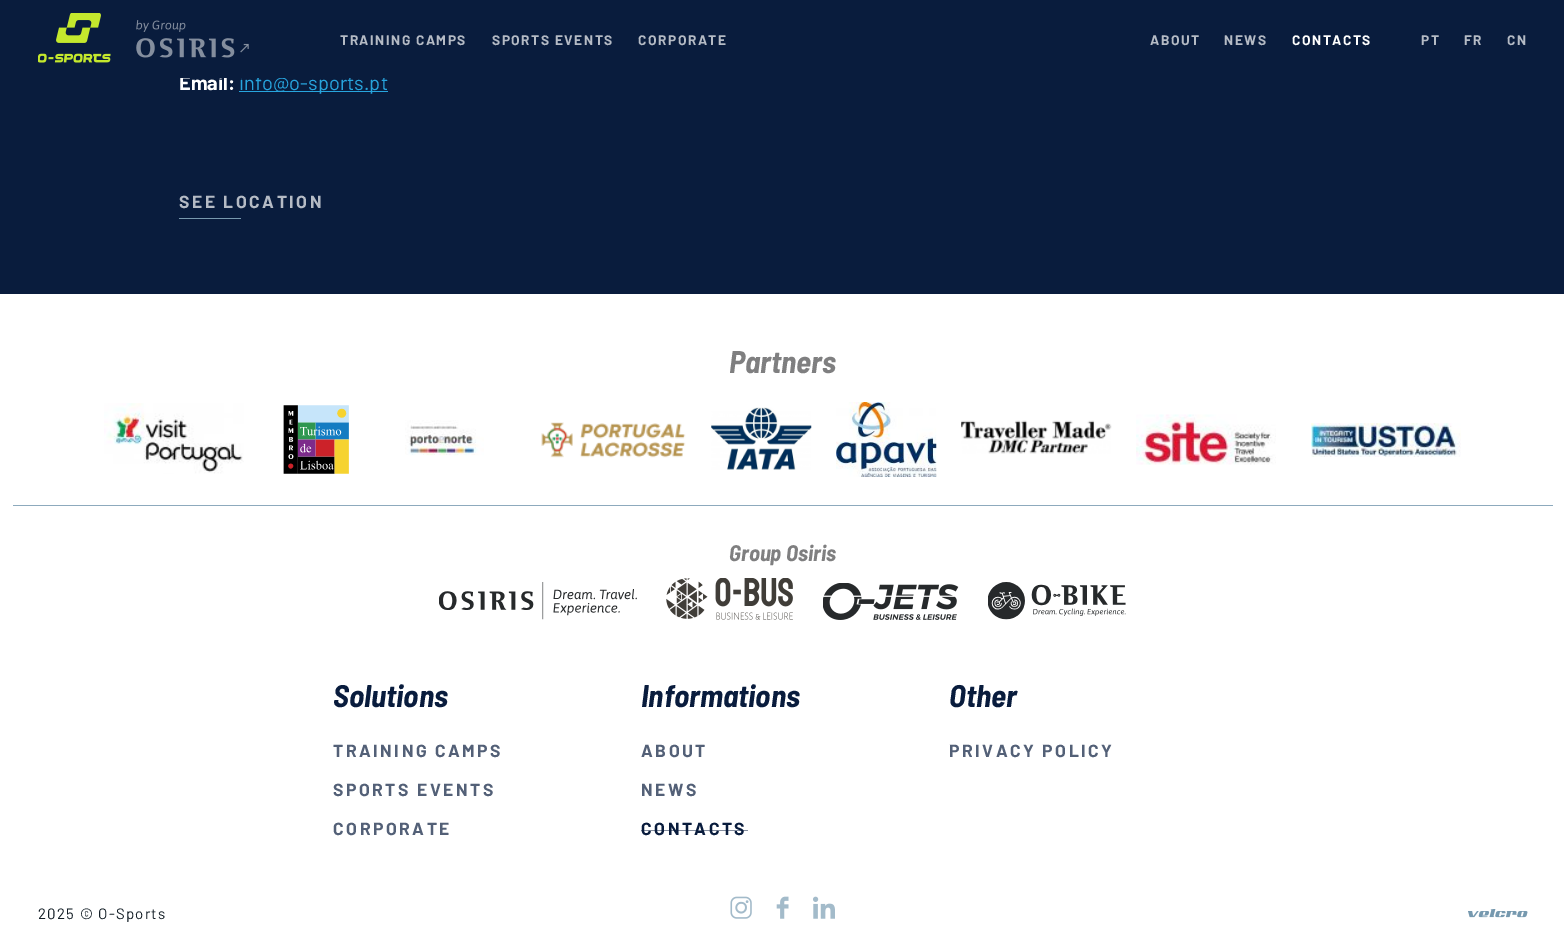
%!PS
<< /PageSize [1564 933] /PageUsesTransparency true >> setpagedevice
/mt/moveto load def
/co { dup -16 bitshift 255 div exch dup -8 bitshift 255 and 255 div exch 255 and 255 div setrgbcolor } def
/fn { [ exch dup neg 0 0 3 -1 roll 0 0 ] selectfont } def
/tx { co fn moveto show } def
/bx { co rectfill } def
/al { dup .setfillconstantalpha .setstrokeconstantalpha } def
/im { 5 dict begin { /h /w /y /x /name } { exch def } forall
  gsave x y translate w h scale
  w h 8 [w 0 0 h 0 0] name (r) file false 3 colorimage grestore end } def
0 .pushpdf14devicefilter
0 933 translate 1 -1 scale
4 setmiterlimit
0 0 1564 933 16#FFFFFF bx
0 78 1564 216 16#091C3D bx
239 91 149 1 16#27A5DE bx
179 218 62 1 16#7899AE bx
(media/3.raw) 104 403 140 71 im
(media/4.raw) 283 405 66 69 im
(media/5.raw) 405 420 79 36 im
(media/6.raw) 541 422 145 36 im
(media/7.raw) 711 407 101 63 im
(media/8.raw) 836 402 101 75 im
(media/9.raw) 961 420 151 34 im
(media/10.raw) 1136 414 140 51 im
(media/11.raw) 1311 423 150 34 im
13 505 1540 1 16#8DAABD bx
(media/12.raw) 439 582 198 38 im
(media/13.raw) 666 578 127 42 im
(media/14.raw) 823 583 136 37 im
(media/15.raw) 988 582 138 38 im
(media/16.raw) 730 896 22 23 im
(media/17.raw) 776 896 13 23 im
(media/18.raw) 813 896 22 23 im
(media/19.raw) 1468 909 60 9 im
(Email:) 179 90 /Barlow-Bold 20 16#FFFFFF tx
(info@o-sports.pt) 239 90 /Barlow-Regular 20 16#27A5DE tx
0 0 1564 78 16#091C3D bx
/Barlow-Bold 13.75 fn
16#B5BBC5 co
1507 45 mt 1.5 0 (CN) ashow
1464 45 mt 1.5 0 (FR) ashow
1421 45 mt 1.5 0 (PT) ashow
16#FFFFFF co
1292 45 mt 1.5 0 (CONTACTS) ashow
16#B5BBC5 co
1224 45 mt 1.5 0 (NEWS) ashow
1150 45 mt 1.5 0 (ABOUT) ashow
638 45 mt 1.5 0 (CORPORATE) ashow
492 45 mt 1.5 0 (SPORTS EVENTS) ashow
340 45 mt 1.5 0 (TRAINING CAMPS) ashow
(media/2.raw) 136 20 113 38 im
(media/1.raw) 38 13 73 50 im
/Barlow-Bold 17.5 fn
179 208 mt 2.5 0 (SEE LOCATION) ashow
(Partners) 729 373 /BarlowSemiCondensed-BoldItalic 31.25 16#7F7F80 tx
(Group Osiris) 729 561 /BarlowSemiCondensed-BoldItalic 22.5 16#7F7F80 tx
(Solutions) 333 707 /BarlowSemiCondensed-BoldItalic 31.25 16#091C3D tx
/Barlow-Bold 17.5 fn
16#536077 co
333 757 mt 2.5 0 (TRAINING CAMPS) ashow
333 796 mt 2.5 0 (SPORTS EVENTS) ashow
333 835 mt 2.5 0 (CORPORATE) ashow
(Informations) 641 707 /BarlowSemiCondensed-BoldItalic 31.25 16#091C3D tx
/Barlow-Bold 17.5 fn
16#536077 co
641 757 mt 2.5 0 (ABOUT) ashow
641 796 mt 2.5 0 (NEWS) ashow
16#091C3D co
641 835 mt 2.5 0 (CONTACTS) ashow
0.5 al
641 830 107 1 16#091C3D bx
1 al
(Other) 949 707 /BarlowSemiCondensed-BoldItalic 31.25 16#091C3D tx
/Barlow-Bold 17.5 fn
16#536077 co
949 757 mt 2.5 0 (PRIVACY POLICY) ashow
/Barlow-Regular 15 fn
16#131E26 co
38 919 mt 1.25 0 (2025 © O-Sports) ashow
.poppdf14devicefilter showpage
